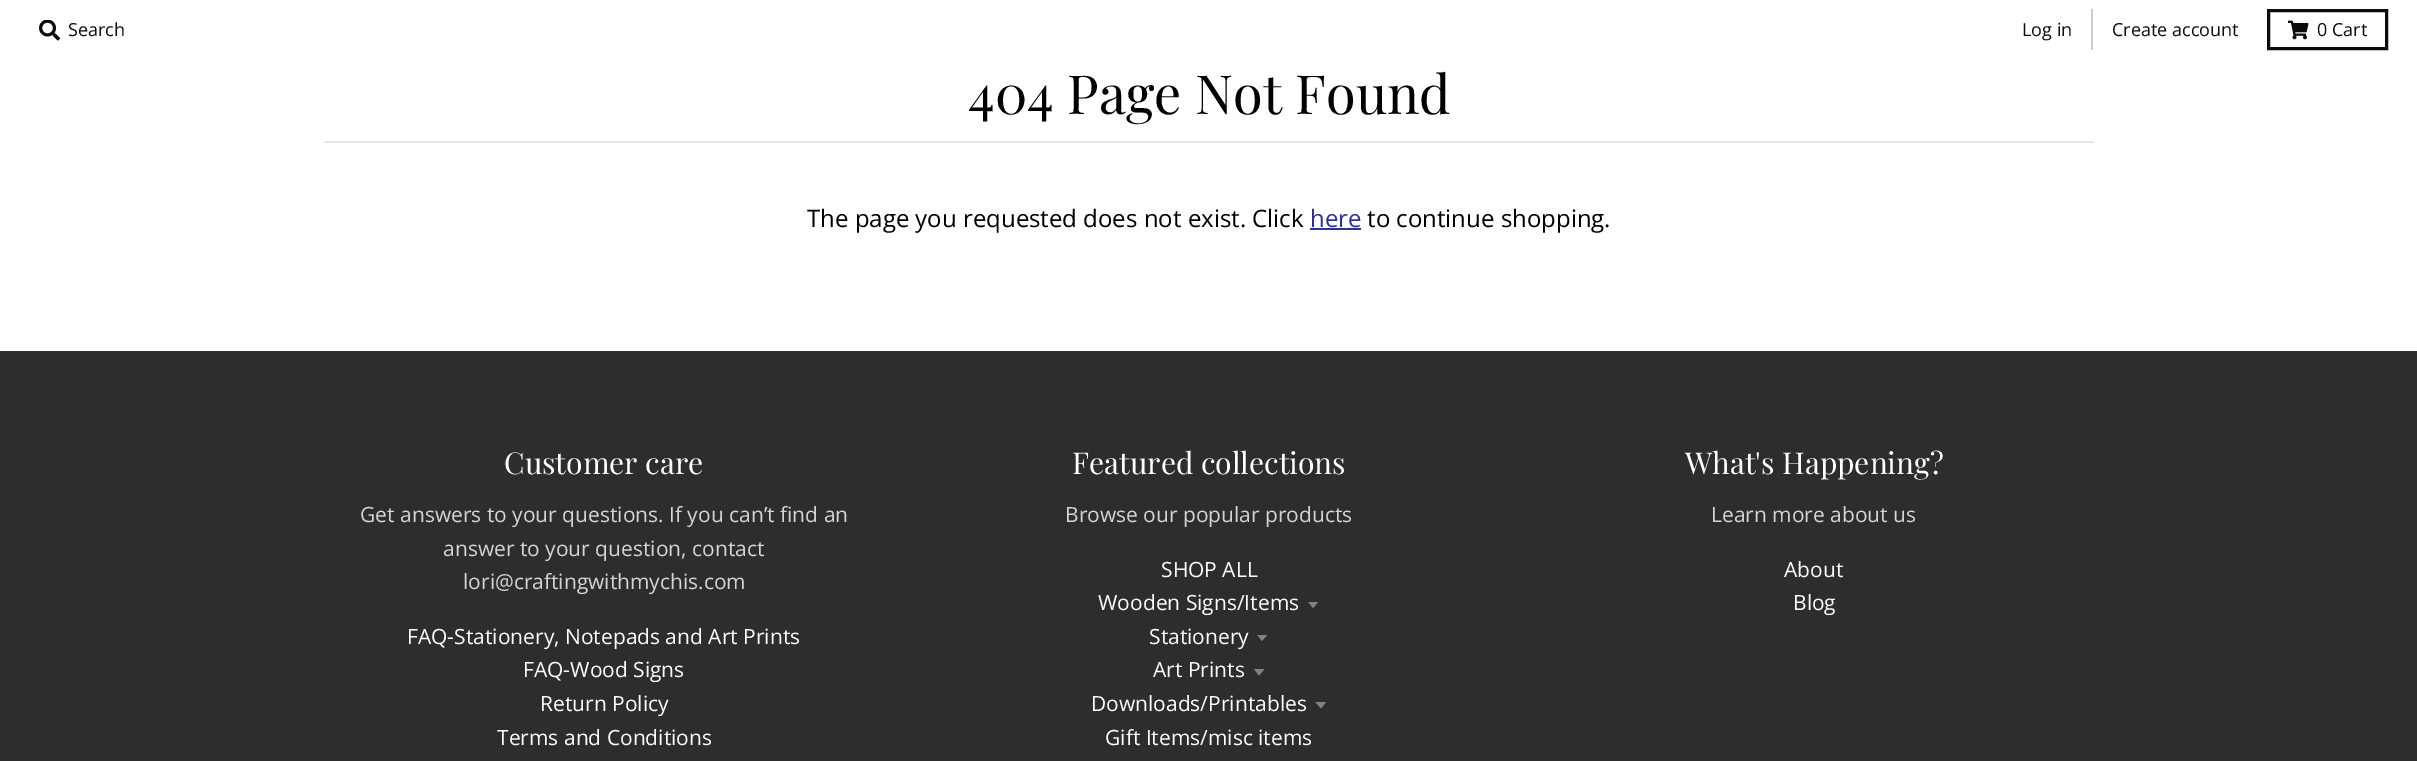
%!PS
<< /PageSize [2417 761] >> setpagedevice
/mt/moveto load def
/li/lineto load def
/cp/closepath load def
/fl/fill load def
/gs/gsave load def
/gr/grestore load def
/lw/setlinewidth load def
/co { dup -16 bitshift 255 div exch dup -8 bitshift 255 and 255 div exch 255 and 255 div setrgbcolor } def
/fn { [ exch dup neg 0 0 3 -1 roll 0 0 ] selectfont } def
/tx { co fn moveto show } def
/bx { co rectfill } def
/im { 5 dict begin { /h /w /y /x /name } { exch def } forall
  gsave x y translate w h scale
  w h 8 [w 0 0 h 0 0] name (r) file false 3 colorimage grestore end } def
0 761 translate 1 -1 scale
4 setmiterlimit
0 0 2417 761 16#FFFFFF bx
(media/1.raw) 39 20 21 21 im
2091 9 2 41 16#CECECE bx
16#0C0C0C co
3 lw
2268.5 10.5 118 38 rectstroke
(media/2.raw) 2288 20 21 20 im
324 141 1770 2 16#E5E5E5 bx
1310 228 51 2 16#2E3192 bx
0 351 2417 410 16#2D2D2D bx
gs
1308 602 12 7 rectclip
16#818181 co
1308 601.5 mt 1313 608 li 1318.5 601.5 li cp fl
gr
gs
1257 635 12 7 rectclip
16#818181 co
1257 634.5 mt 1262 641 li 1267.5 634.5 li cp fl
gr
16#818181 co
1254 669 mt 1259 675.5 li 1264.5 669 li cp fl
1315.5 702 mt 1321 708.5 li 1326 702 li cp fl
(Search) 68 36 /OpenSans-Regular 18 16#0C0C0C tx
(Log in) 2022 36 /OpenSans-Regular 18 16#0C0C0C tx
(Create account) 2112 36 /OpenSans-Regular 18 16#0C0C0C tx
(0 Cart) 2317 36 /OpenSans-Regular 18 16#0C0C0C tx
(404 Page Not Found) 968 114 /PlayfairDisplay-Regular 54 16#000000 tx
(The page you requested does not exist. Click) 807 227 /OpenSans-Regular 24 16#000000 tx
(here) 1310 227 /OpenSans-Regular 24 16#2E3192 tx
(to continue shopping.) 1367 227 /OpenSans-Regular 24 16#000000 tx
(Customer care) 504 474 /PlayfairDisplay-Regular 30 16#FFFFFF tx
(Get answers to your questions. If you can’t find an) 360 522 /OpenSans-Regular 21 16#D5D5D5 tx
(answer to your question, contact) 443 556 /OpenSans-Regular 21 16#D5D5D5 tx
(lori@craftingwithmychis.com) 463 589 /OpenSans-Regular 21 16#D5D5D5 tx
(FAQ-Stationery, Notepads and Art Prints) 407 644 /OpenSans-Regular 21 16#FFFFFF tx
(FAQ-Wood Signs) 523 677 /OpenSans-Regular 21 16#FFFFFF tx
(Return Policy) 540 711 /OpenSans-Regular 21 16#FFFFFF tx
(Terms and Conditions) 497 745 /OpenSans-Regular 21 16#FFFFFF tx
(Featured collections) 1072 474 /PlayfairDisplay-Regular 30 16#FFFFFF tx
(Browse our popular products) 1065 522 /OpenSans-Regular 21 16#D5D5D5 tx
(SHOP ALL) 1161 577 /OpenSans-Regular 21 16#FFFFFF tx
(Wooden Signs/Items) 1098 610 /OpenSans-Regular 21 16#FFFFFF tx
(Stationery) 1149 644 /OpenSans-Regular 21 16#FFFFFF tx
(Art Prints) 1153 677 /OpenSans-Regular 21 16#FFFFFF tx
(Downloads/Printables) 1091 711 /OpenSans-Regular 21 16#FFFFFF tx
(Gift Items/misc items) 1105 745 /OpenSans-Regular 21 16#FFFFFF tx
(What's Happening?) 1685 474 /PlayfairDisplay-Regular 30 16#FFFFFF tx
(Learn more about us) 1711 522 /OpenSans-Regular 21 16#D5D5D5 tx
(About) 1784 577 /OpenSans-Regular 21 16#FFFFFF tx
(Blog) 1793 610 /OpenSans-Regular 21 16#FFFFFF tx
showpage
